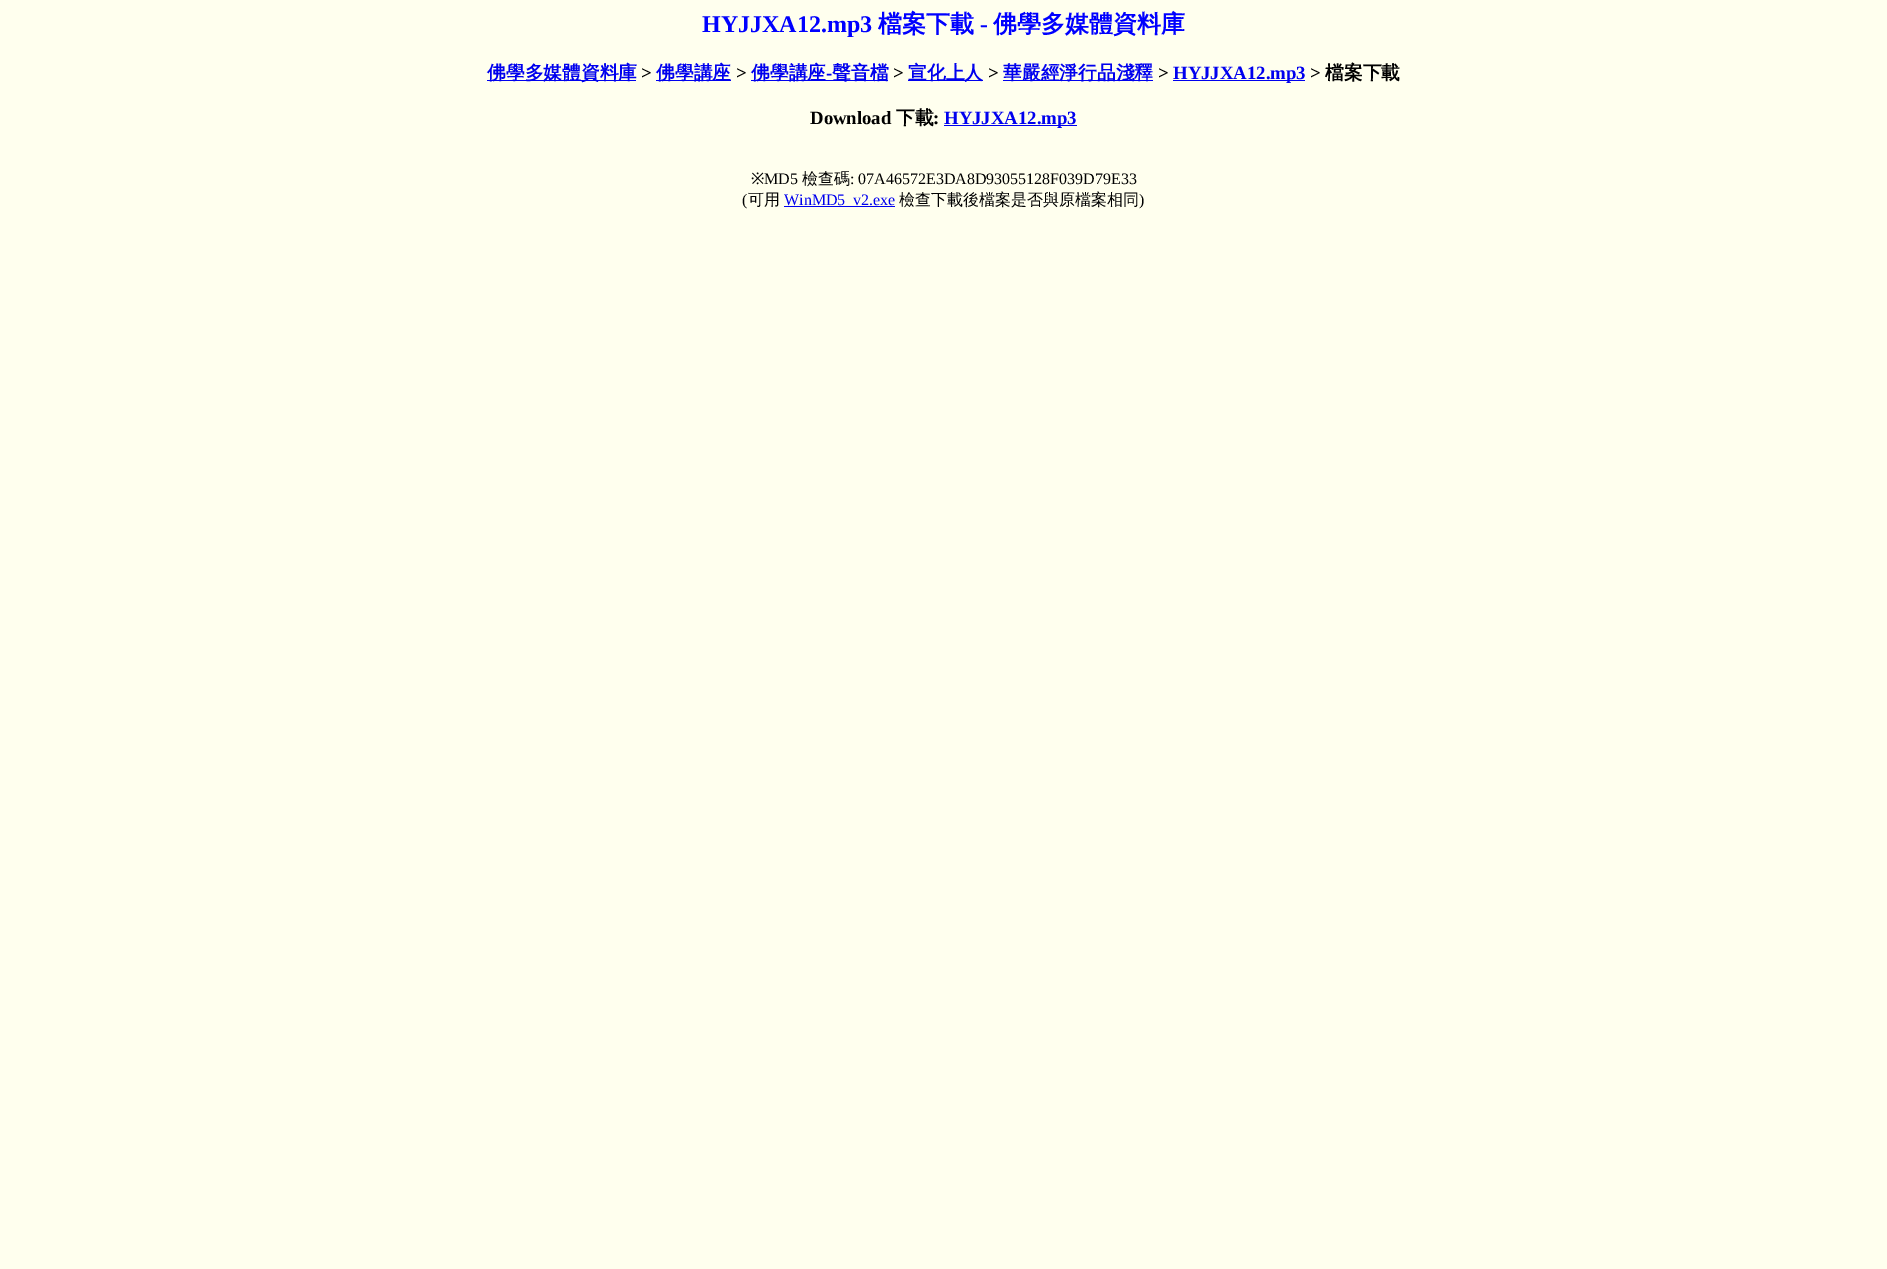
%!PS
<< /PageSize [1887 1269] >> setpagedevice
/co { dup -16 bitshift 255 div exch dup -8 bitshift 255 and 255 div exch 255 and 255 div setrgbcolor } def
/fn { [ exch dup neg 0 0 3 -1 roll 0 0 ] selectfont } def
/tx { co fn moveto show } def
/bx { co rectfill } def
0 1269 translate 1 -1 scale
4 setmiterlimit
0 0 1887 1269 16#FFFFEE bx
487 80 149 1 16#0000EE bx
656 80 75 1 16#0000EE bx
751 80 137 1 16#0000EE bx
908 80 75 1 16#0000EE bx
1003 80 150 1 16#0000EE bx
1173 80 132 1 16#0000EE bx
944 125 133 1 16#0000EE bx
784 206 111 1 16#0000EE bx
(HYJJXA12.mp3) 702 32 /LiberationSerif-Bold 24 16#0000FF tx
(檔案下載) 878 32 /WenQuanYiZenHei-Bold 24 16#0000FF tx
(-) 980 32 /LiberationSerif-Bold 24 16#0000FF tx
(佛學多媒體資料庫) 993 32 /WenQuanYiZenHei-Bold 24 16#0000FF tx
(佛學多媒體資料庫) 487 79 /WenQuanYiZenHei-Bold 18.75 16#0000EE tx
(>) 641 79 /LiberationSerif-Bold 18.75 16#000000 tx
(佛學講座) 656 79 /WenQuanYiZenHei-Bold 18.75 16#0000EE tx
(>) 736 79 /LiberationSerif-Bold 18.75 16#000000 tx
(佛學講座) 751 79 /WenQuanYiZenHei-Bold 18.75 16#0000EE tx
(-) 826 79 /LiberationSerif-Bold 18.75 16#0000EE tx
(聲音檔) 832 79 /WenQuanYiZenHei-Bold 18.75 16#0000EE tx
(>) 893 79 /LiberationSerif-Bold 18.75 16#000000 tx
(宣化上人) 908 79 /WenQuanYiZenHei-Bold 18.75 16#0000EE tx
(>) 988 79 /LiberationSerif-Bold 18.75 16#000000 tx
(華嚴經淨行品淺釋) 1003 79 /WenQuanYiZenHei-Bold 18.75 16#0000EE tx
(>) 1158 79 /LiberationSerif-Bold 18.75 16#000000 tx
(HYJJXA12.mp3) 1173 79 /LiberationSerif-Bold 18.75 16#0000EE tx
(>) 1310 79 /LiberationSerif-Bold 18.75 16#000000 tx
(檔案下載) 1325 79 /WenQuanYiZenHei-Bold 18.75 16#000000 tx
(Download) 810 124 /LiberationSerif-Bold 18.75 16#000000 tx
(下載) 896 124 /WenQuanYiZenHei-Bold 18.75 16#000000 tx
(:) 933 124 /LiberationSerif-Bold 18.75 16#000000 tx
(HYJJXA12.mp3) 944 124 /LiberationSerif-Bold 18.75 16#0000EE tx
(※) 751 184 /NotoSans-Regular 16 16#000000 tx
(MD5) 764 184 /LiberationSerif-Regular 16 16#000000 tx
(檢查碼) 802 184 /WenQuanYiZenHei-Medium 16 16#000000 tx
(: 07A46572E3DA8D93055128F039D79E33) 850 184 /LiberationSerif-Regular 16 16#000000 tx
(\() 742 205 /LiberationSerif-Regular 16 16#000000 tx
(可用) 748 205 /WenQuanYiZenHei-Medium 16 16#000000 tx
(WinMD5_v2.exe) 784 205 /LiberationSerif-Regular 16 16#0000EE tx
(檢查下載後檔案是否與原檔案相同) 899 205 /WenQuanYiZenHei-Medium 16 16#000000 tx
(\)) 1139 205 /LiberationSerif-Regular 16 16#000000 tx
showpage
